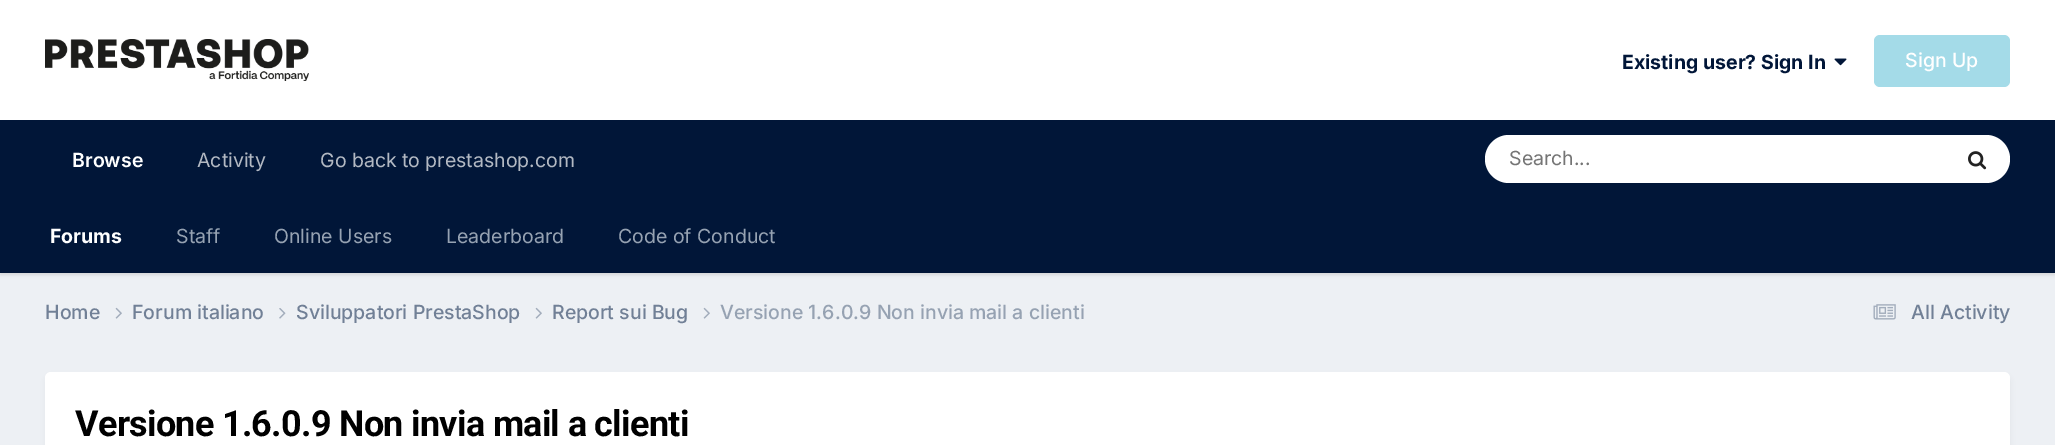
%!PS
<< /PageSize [2055 445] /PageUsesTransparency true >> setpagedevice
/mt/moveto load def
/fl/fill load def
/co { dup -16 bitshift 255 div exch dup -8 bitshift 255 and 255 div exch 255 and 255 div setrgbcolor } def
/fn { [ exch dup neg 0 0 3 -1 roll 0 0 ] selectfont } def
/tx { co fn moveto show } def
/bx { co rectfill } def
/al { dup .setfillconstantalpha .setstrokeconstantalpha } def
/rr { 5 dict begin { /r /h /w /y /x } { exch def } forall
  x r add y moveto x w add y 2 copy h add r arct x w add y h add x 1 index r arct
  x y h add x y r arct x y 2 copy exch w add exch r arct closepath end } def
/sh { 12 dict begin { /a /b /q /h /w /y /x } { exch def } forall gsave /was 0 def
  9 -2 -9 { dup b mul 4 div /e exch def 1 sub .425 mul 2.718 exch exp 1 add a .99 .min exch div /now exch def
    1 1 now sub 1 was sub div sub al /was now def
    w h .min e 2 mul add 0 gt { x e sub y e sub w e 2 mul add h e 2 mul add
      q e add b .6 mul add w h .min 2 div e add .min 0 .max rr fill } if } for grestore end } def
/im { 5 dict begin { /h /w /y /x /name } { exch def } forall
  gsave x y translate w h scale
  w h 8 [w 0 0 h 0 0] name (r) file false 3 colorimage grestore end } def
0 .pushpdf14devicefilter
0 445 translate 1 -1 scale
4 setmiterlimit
0 0 2055 445 16#EDF0F4 bx
0 0 2055 120 16#FFFFFF bx
(media/1.raw) 45 39 264 42 im
(media/2.raw) 1834 58 13 8 im
16#A4DBE8 co
1874 35 136 52 6 rr fl
0 120 2055 78 16#011638 bx
16#FFFFFF co
1485 135 525 48 24 rr fl
(media/3.raw) 1968 151 19 19 im
16#000000 co
0 200 2055 75 0 1.5 .1 sh
0 198 2055 75 16#011638 bx
(media/4.raw) 115 307 7 12 im
(media/5.raw) 279 308 7 11 im
(media/4.raw) 535 307 7 12 im
(media/4.raw) 703 307 7 12 im
(media/6.raw) 1873 304 23 16 im
16#2D3748 co
47 377 1962 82 5 3 .1 sh
16#FFFFFF co
45 372 1965 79 6 rr fl
(Existing user? Sign In) 1622 69 /Inter-Bold 19.5 16#011638 tx
(Sign Up) 1905 67 /Inter-Medium 19.5 16#FFFFFF tx
(Browse) 72 167 /Inter-SemiBold 19.5 16#FFFFFF tx
(Forums) 50 243 /Inter-Bold 19.5 16#FFFFFF tx
(Staff) 176 243 /Inter-Regular 19.5 16#96A2B2 tx
(Online Users) 274 243 /Inter-Regular 19.5 16#96A2B2 tx
(Leaderboard) 446 243 /Inter-Regular 19.5 16#96A2B2 tx
(Code of Conduct) 618 243 /Inter-Regular 19.5 16#96A2B2 tx
(Activity) 197 167 /Inter-Regular 19.5 16#B3B9C3 tx
(Go back to prestashop.com) 320 167 /Inter-Regular 19.5 16#B3B9C3 tx
(Search...) 1509 165 /Inter-Regular 19.5 16#757575 tx
(Home) 45 319 /Inter-Medium 19.5 16#718096 tx
(Forum italiano) 132 319 /Inter-Medium 19.5 16#718096 tx
(Sviluppatori PrestaShop) 296 319 /Inter-Medium 19.5 16#718096 tx
(Report sui Bug) 552 319 /Inter-Medium 19.5 16#718096 tx
(Versione 1.6.0.9 Non invia mail a clienti) 720 319 /Inter-Medium 19.5 16#96A2B2 tx
(All Activity) 1911 319 /Inter-Medium 19.5 16#718096 tx
/Roboto-Bold 36 fn
16#000000 co
75 436 mt -.7 0 (Versione 1.6.0.9 Non invia mail a clienti) ashow
.poppdf14devicefilter showpage
